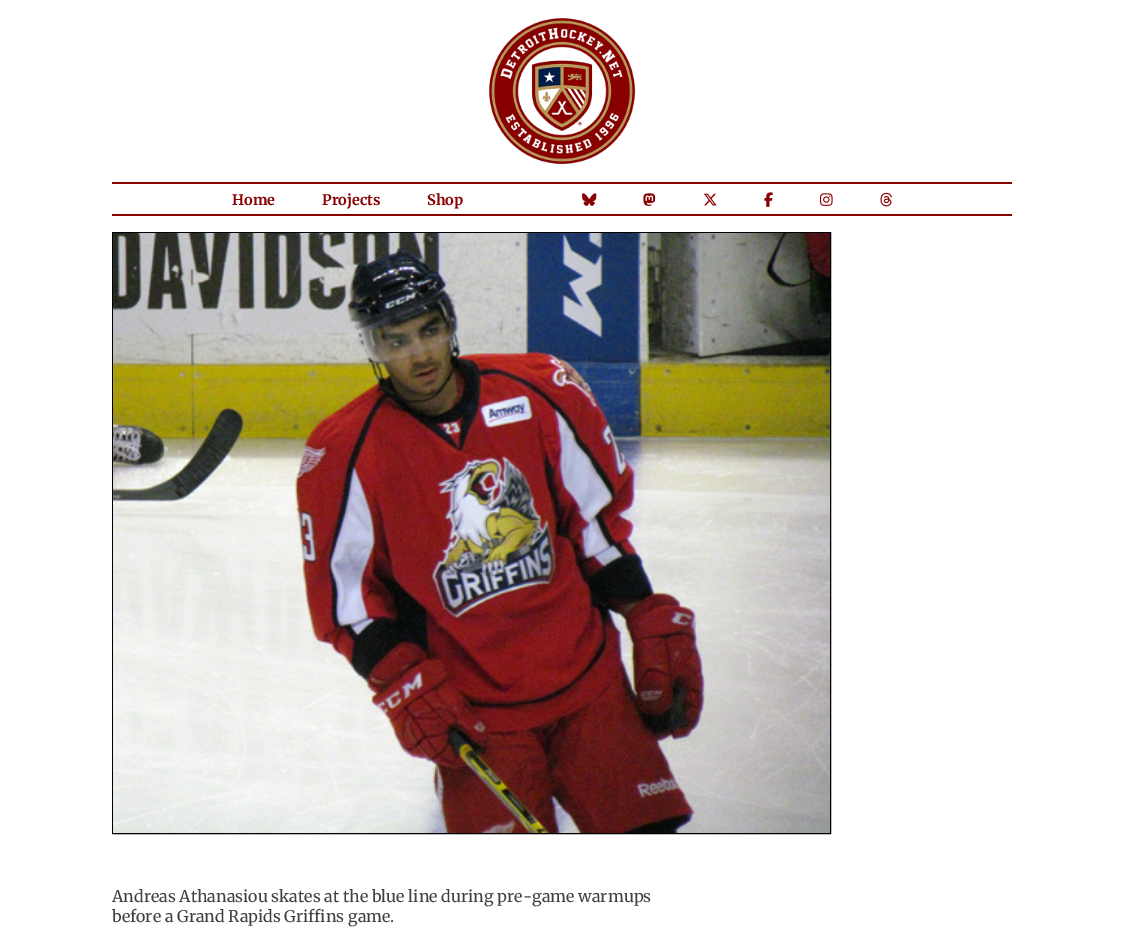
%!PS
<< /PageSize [1124 934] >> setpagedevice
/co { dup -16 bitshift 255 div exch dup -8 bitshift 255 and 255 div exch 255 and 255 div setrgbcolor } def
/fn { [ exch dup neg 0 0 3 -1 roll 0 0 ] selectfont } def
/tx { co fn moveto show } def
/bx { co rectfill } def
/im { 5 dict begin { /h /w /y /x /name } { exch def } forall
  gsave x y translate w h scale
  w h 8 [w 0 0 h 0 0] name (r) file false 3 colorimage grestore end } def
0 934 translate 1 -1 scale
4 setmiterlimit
0 0 1124 934 16#FFFFFF bx
(media/1.raw) 489 18 147 147 im
112 182 900 2 16#880000 bx
112 214 900 2 16#880000 bx
(media/2.raw) 582 193 15 13 im
(media/3.raw) 643 193 13 13 im
(media/4.raw) 703 193 14 13 im
(media/5.raw) 764 192 9 15 im
(media/6.raw) 820 193 13 13 im
(media/7.raw) 880 192 12 15 im
16#000000 co
112.5 232.5 718 601 rectstroke
(media/8.raw) 113 233 717 600 im
(Home) 232 205 /Merriweather-Bold 14.5 16#880000 tx
(Projects) 322 205 /Merriweather-Bold 14.5 16#880000 tx
(Shop) 427 205 /Merriweather-Bold 14.5 16#880000 tx
(Andreas Athanasiou skates at the blue line during pre-game warmups) 112 902 /Merriweather-Regular 16 16#414141 tx
(before a Grand Rapids Griffins game.) 112 922 /Merriweather-Regular 16 16#414141 tx
showpage
